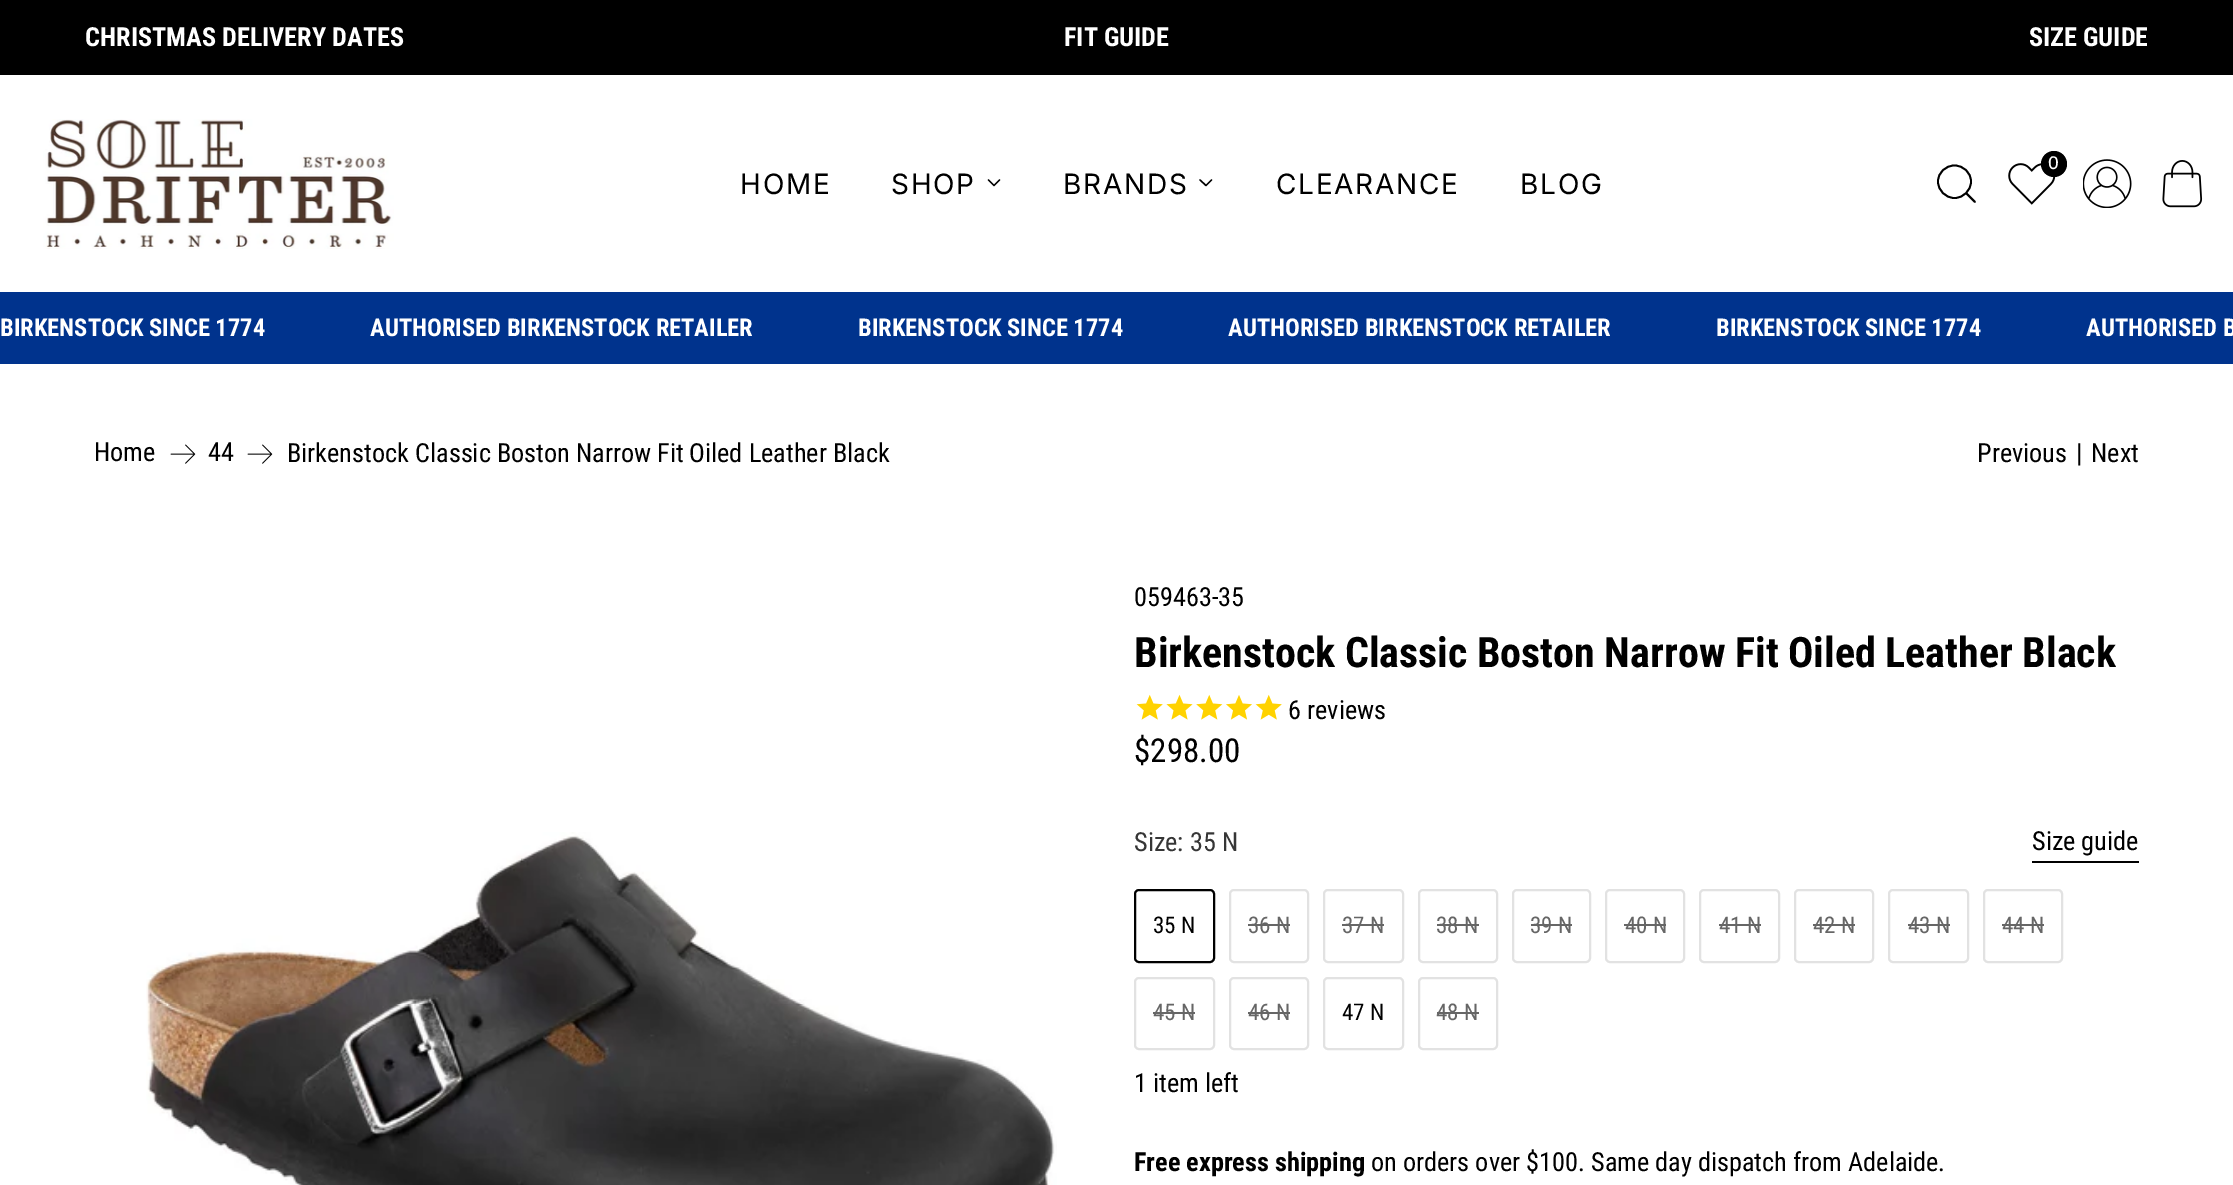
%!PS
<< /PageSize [2233 1185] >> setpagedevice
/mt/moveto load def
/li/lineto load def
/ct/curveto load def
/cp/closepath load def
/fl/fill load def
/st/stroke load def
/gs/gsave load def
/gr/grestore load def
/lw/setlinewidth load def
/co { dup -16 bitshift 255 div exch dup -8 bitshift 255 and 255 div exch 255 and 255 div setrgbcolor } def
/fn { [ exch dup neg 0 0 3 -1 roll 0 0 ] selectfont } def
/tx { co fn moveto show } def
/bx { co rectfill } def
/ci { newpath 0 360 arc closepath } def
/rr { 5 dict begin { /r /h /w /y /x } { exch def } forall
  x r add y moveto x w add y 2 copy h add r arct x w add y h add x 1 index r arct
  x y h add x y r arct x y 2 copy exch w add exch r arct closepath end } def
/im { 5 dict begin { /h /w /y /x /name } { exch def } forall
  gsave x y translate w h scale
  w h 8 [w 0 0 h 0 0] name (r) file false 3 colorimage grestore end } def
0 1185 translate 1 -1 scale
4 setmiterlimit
0 0 2233 1185 16#FFFFFF bx
0 0 2233 75 16#000000 bx
(media/1.raw) 43 119 351 130 im
1.8 lw
1 setlinecap
1 setlinejoin
1954.5 198 mt 1963.5 198 1971 190.5 1971 181.5 ct 1971 172.5 1963.5 165.5 1954.5 165.5 ct 1945.5 165.5 1938 172.5 1938 181.5 ct 1938 190.5 1945.5 198 1954.5 198 ct cp 1975 202 mt 1966 193 li st
(media/2.raw) 2008 163 48 42 im
2054 164 13 ci fl
(media/3.raw) 2083 159 49 49 im
(media/4.raw) 2162 160 41 48 im
1.4 lw
988.5 180 mt 994 185.5 li 999.5 180 li st
1200 180 mt 1206 185.5 li 1211.5 180 li st
0 292 2233 72 16#00338D bx
(media/5.raw) 170 444 26 20 im
(media/5.raw) 247 444 26 20 im
(media/6.raw) 146 832 911 353 im
(media/7.raw) 1136 694 27 26 im
(media/8.raw) 1166 694 27 26 im
(media/9.raw) 1196 694 27 26 im
(media/10.raw) 1226 695 26 25 im
(media/7.raw) 1255 694 27 26 im
2032 861 107 2 16#000000 bx
2 lw
0 setlinecap
0 setlinejoin
1135 890 79 72 4 rr st
16#E2E2E2 co
1230 890 78 72 4 rr st
1248 924 42 2 16#666666 bx
16#E2E2E2 co
1324 890 79 72 4 rr st
1342 924 42 2 16#666666 bx
16#E2E2E2 co
1419 890 78 72 4 rr st
1437 924 42 2 16#666666 bx
16#E2E2E2 co
1513 890 77 72 4 rr st
1531 924 41 2 16#666666 bx
16#E2E2E2 co
1606 890 78 72 4 rr st
1624 924 42 2 16#666666 bx
16#E2E2E2 co
1700 890 79 72 4 rr st
1719 924 42 2 16#666666 bx
16#E2E2E2 co
1795 890 78 72 4 rr st
1813 924 42 2 16#666666 bx
16#E2E2E2 co
1889 890 79 72 4 rr st
1908 924 42 2 16#666666 bx
16#E2E2E2 co
1984 890 78 72 4 rr st
2002 924 42 2 16#666666 bx
16#E2E2E2 co
1135 978 79 71 4 rr st
1153 1012 42 2 16#666666 bx
16#E2E2E2 co
1230 978 78 71 4 rr st
1248 1012 42 2 16#666666 bx
16#E2E2E2 co
1324 978 79 71 4 rr st
1419 978 78 71 4 rr st
1437 1012 42 2 16#666666 bx
(CHRISTMAS DELIVERY DATES) 85 46 /RobotoCondensed-Bold 26.25 16#FFFFFF tx
(FIT GUIDE) 1064 46 /RobotoCondensed-Bold 26.25 16#FFFFFF tx
gs
86 18 2061 40 rectclip
(SIZE GUIDE) 2029 46 /RobotoCondensed-Bold 26.25 16#FFFFFF tx
gr
(0) 2048 169 /Nunito-SemiBold 18 16#FFFFFF tx
/Inter-Regular 28 fn
16#000000 co
740 194 mt 1.75 0 (HOME) ashow
891 194 mt 1.75 0 (SHOP) ashow
1063 194 mt 1.75 0 (BRANDS) ashow
1276 194 mt 1.75 0 (CLEARANCE) ashow
1520 194 mt 1.75 0 (BLOG) ashow
(BIRKENSTOCK SINCE 1774) 0 336 /RobotoCondensed-Bold 24.5 16#FFFFFF tx
(AUTHORISED BIRKENSTOCK RETAILER) 370 336 /RobotoCondensed-Bold 24.5 16#FFFFFF tx
(BIRKENSTOCK SINCE 1774) 858 336 /RobotoCondensed-Bold 24.5 16#FFFFFF tx
(AUTHORISED BIRKENSTOCK RETAILER) 1228 336 /RobotoCondensed-Bold 24.5 16#FFFFFF tx
(BIRKENSTOCK SINCE 1774) 1716 336 /RobotoCondensed-Bold 24.5 16#FFFFFF tx
(AUTHORISED B) 2086 336 /RobotoCondensed-Bold 24.5 16#FFFFFF tx
(Home) 94 461 /RobotoCondensed-Regular 26.25 16#000000 tx
(44) 208 461 /RobotoCondensed-Regular 26.25 16#000000 tx
(Birkenstock Classic Boston Narrow Fit Oiled Leather Black) 287 462 /RobotoCondensed-Regular 26.25 16#000000 tx
(Previous) 1977 462 /RobotoCondensed-Regular 26.25 16#000000 tx
(|) 2076 462 /RobotoCondensed-Regular 26.25 16#000000 tx
(Next) 2091 462 /RobotoCondensed-Regular 26.25 16#000000 tx
(059463-35) 1134 606 /RobotoCondensed-Regular 26.25 16#000000 tx
(Birkenstock Classic Boston Narrow Fit Oiled Leather Black) 1134 667 /RobotoCondensed-Bold 42 16#000000 tx
(6 reviews) 1288 719 /RobotoCondensed-Regular 26.25 16#000000 tx
($298.00) 1134 762 /RobotoCondensed-Regular 33 16#000000 tx
(Size: 35 N) 1134 851 /RobotoCondensed-Regular 26.25 16#363636 tx
(Size guide) 2032 850 /RobotoCondensed-Regular 26.25 16#000000 tx
(35 N) 1153 933 /RobotoCondensed-Regular 23 16#000000 tx
(36 N) 1248 933 /RobotoCondensed-Regular 23 16#666666 tx
(37 N) 1342 933 /RobotoCondensed-Regular 23 16#666666 tx
(38 N) 1436 933 /RobotoCondensed-Regular 23 16#666666 tx
(39 N) 1530 933 /RobotoCondensed-Regular 23 16#666666 tx
(40 N) 1625 933 /RobotoCondensed-Regular 23 16#666666 tx
(41 N) 1719 933 /RobotoCondensed-Regular 23 16#666666 tx
(42 N) 1813 933 /RobotoCondensed-Regular 23 16#666666 tx
(43 N) 1908 933 /RobotoCondensed-Regular 23 16#666666 tx
(44 N) 2002 933 /RobotoCondensed-Regular 23 16#666666 tx
(45 N) 1153 1020 /RobotoCondensed-Regular 23 16#666666 tx
(46 N) 1248 1020 /RobotoCondensed-Regular 23 16#666666 tx
(47 N) 1342 1020 /RobotoCondensed-Regular 23 16#000000 tx
(48 N) 1436 1020 /RobotoCondensed-Regular 23 16#666666 tx
(1 item left) 1134 1092 /RobotoCondensed-Regular 26.25 16#000000 tx
(Free express shipping) 1134 1171 /RobotoCondensed-Bold 26.25 16#000000 tx
(on orders over $100. Same day dispatch from Adelaide.) 1371 1171 /RobotoCondensed-Regular 26.25 16#000000 tx
showpage
